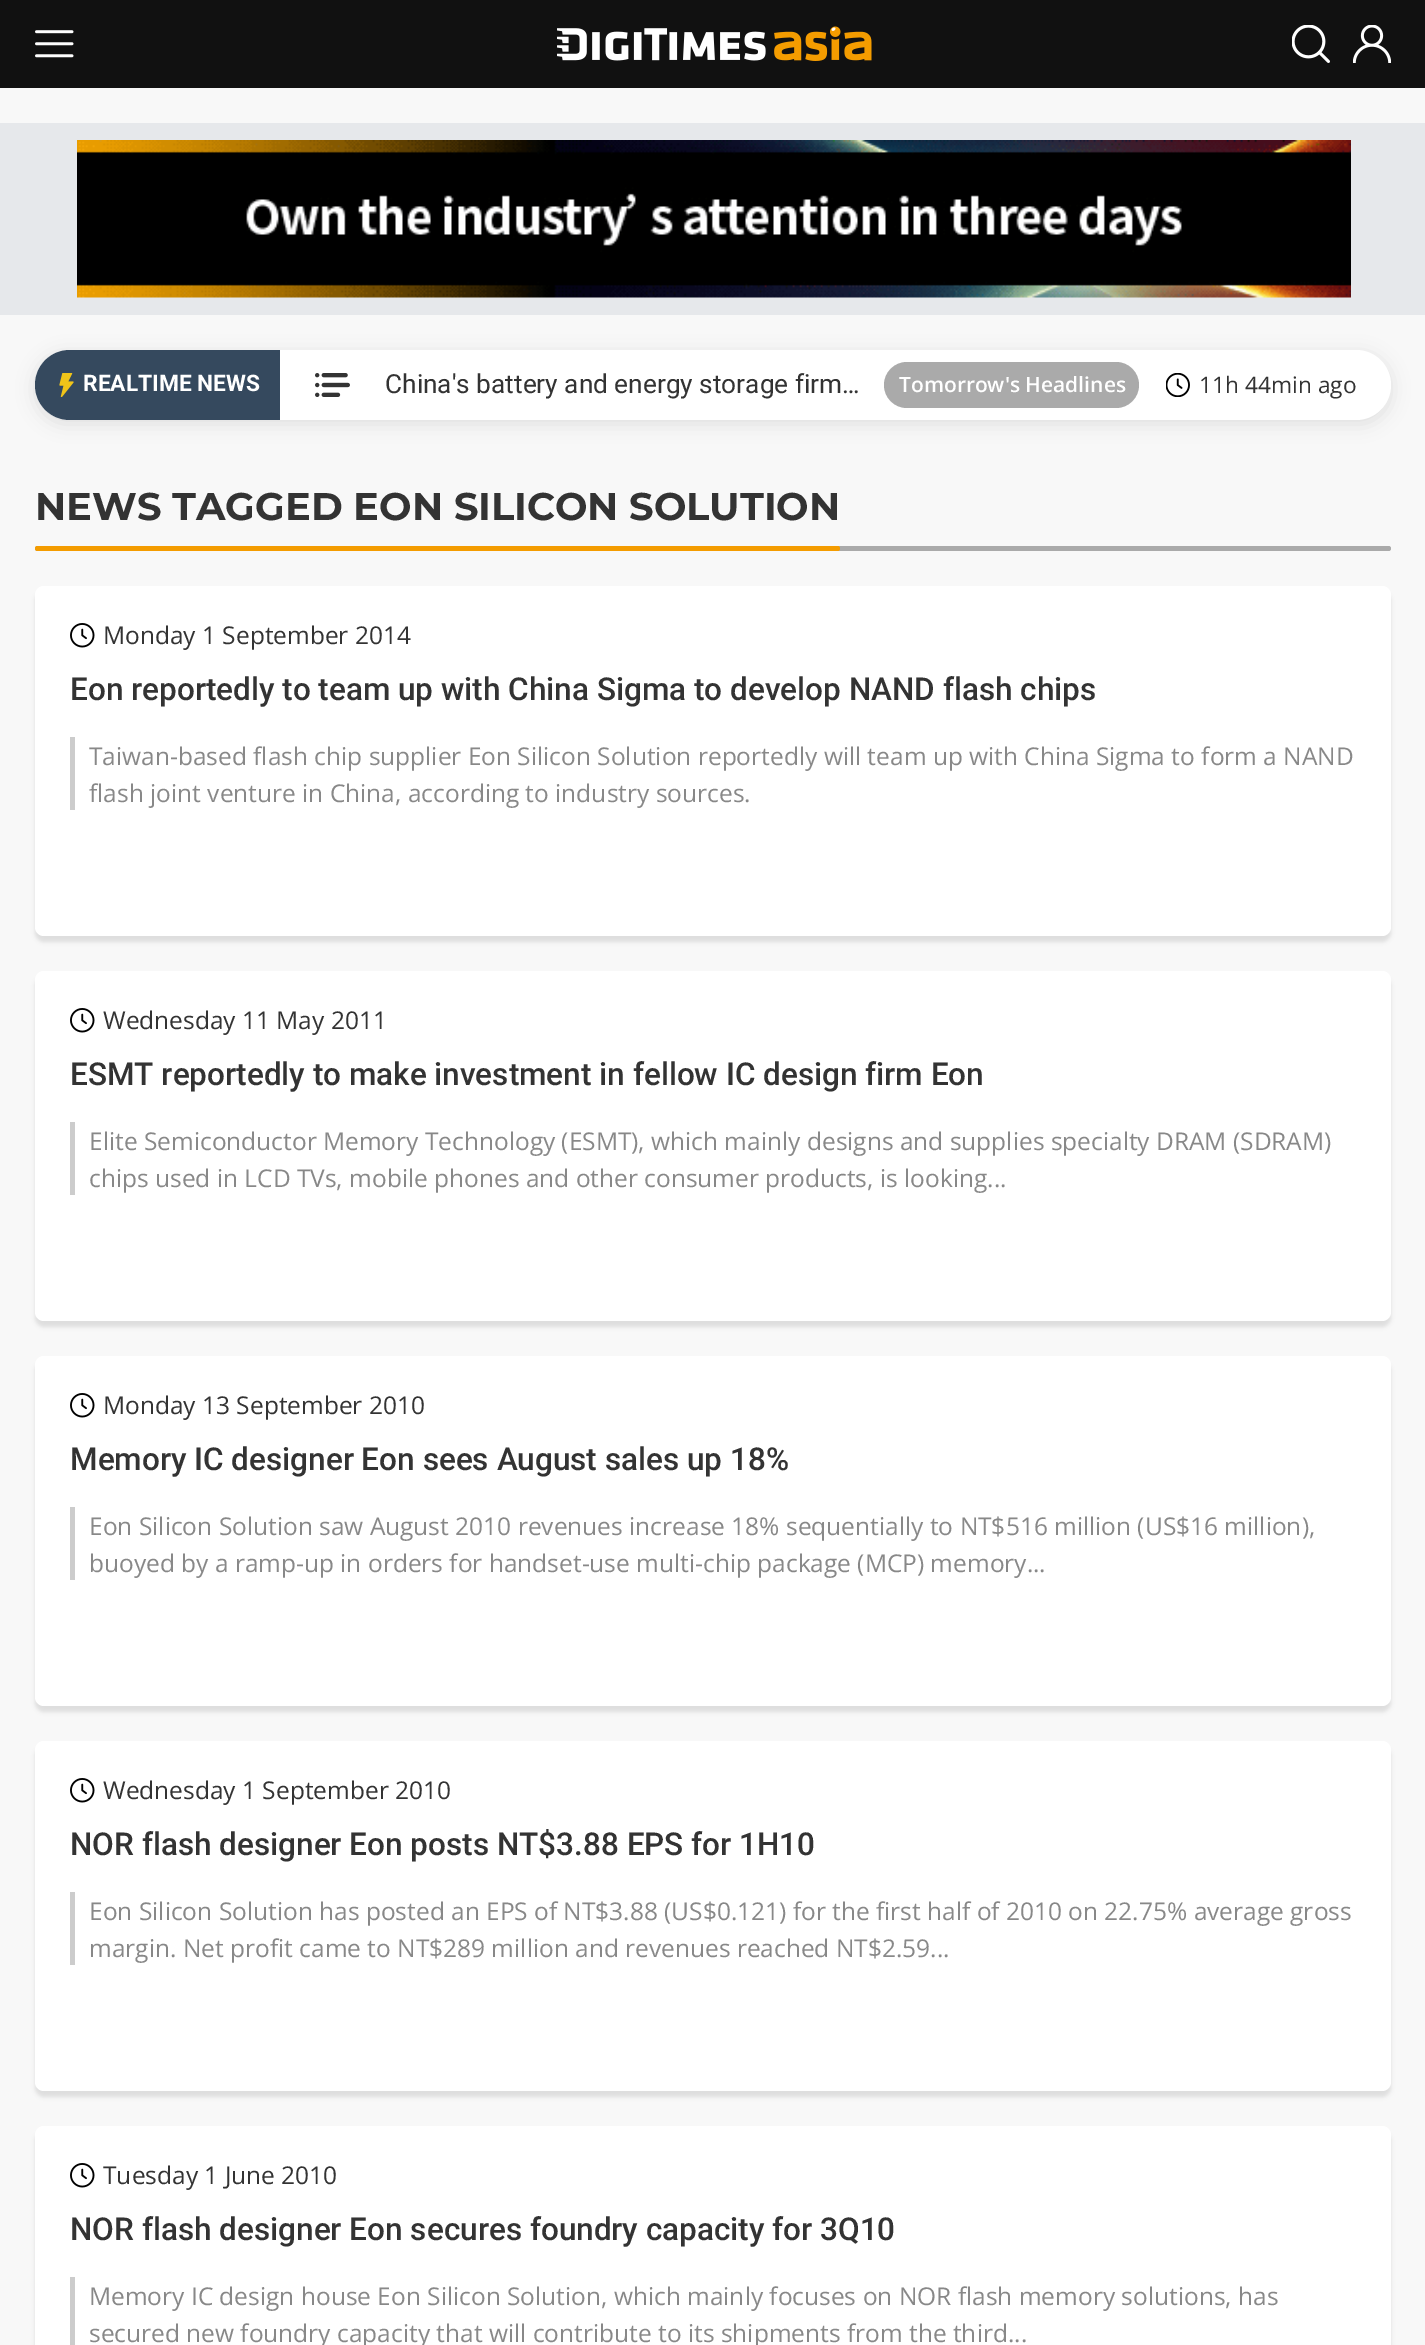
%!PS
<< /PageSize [1425 2345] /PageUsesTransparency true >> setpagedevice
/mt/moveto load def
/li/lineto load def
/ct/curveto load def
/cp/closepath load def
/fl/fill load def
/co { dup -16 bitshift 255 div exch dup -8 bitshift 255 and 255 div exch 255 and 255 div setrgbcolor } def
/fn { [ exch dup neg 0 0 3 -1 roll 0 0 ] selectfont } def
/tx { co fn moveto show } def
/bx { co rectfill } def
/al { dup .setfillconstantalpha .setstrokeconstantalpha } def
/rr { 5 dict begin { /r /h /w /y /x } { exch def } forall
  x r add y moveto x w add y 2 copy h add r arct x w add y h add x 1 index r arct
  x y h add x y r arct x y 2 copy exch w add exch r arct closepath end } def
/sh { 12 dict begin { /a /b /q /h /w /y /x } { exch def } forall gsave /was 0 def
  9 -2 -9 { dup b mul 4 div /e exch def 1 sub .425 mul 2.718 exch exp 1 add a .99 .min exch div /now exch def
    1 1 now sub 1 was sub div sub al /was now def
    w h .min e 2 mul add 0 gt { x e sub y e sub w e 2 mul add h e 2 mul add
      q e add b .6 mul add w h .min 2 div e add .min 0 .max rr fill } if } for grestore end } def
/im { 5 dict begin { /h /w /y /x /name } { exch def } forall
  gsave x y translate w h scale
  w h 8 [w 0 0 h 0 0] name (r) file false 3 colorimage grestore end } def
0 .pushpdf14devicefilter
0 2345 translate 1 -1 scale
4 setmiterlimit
0 0 1425 2345 16#F8F8F8 bx
0 0 1425 88 16#111111 bx
(media/1.raw) 35 30 39 28 im
(media/2.raw) 557 26 315 35 im
(media/3.raw) 1292 25 38 38 im
(media/4.raw) 1353 25 38 38 im
0 123 1425 192 16#E6E8EB bx
(media/5.raw) 77 140 1274 158 im
16#000000 co
35 354 1356 70 35 9 .1 sh
16#FFFFFF co
35 350 1356 70 35 rr fl
16#35495E co
70 350 mt 280 350 li 280 420 li 70 420 li 50.5 420 35 404.5 35 385 ct 35 365.5 50.5 350 70 350 ct cp fl
(media/6.raw) 59 373 15 24 im
(media/7.raw) 315 373 35 24 im
16#AAAAAA co
884 362 255 46 23 rr fl
(media/8.raw) 1166 373 24 24 im
35 546 1356 5 2.5 rr fl
16#F49C00 co
35 546 805 5 2.5 rr fl
16#000000 co
35 592 1356 350 9 2 .1 sh
16#FFFFFF co
35 586 1356 350 9 rr fl
(media/9.raw) 70 623 25 25 im
70 737 5 73 16#CCCCCC bx
16#000000 co
35 977 1356 350 9 2 .1 sh
16#FFFFFF co
35 971 1356 350 9 rr fl
(media/9.raw) 70 1008 25 25 im
70 1122 5 73 16#CCCCCC bx
16#000000 co
35 1362 1356 350 9 2 .1 sh
16#FFFFFF co
35 1356 1356 350 9 rr fl
(media/9.raw) 70 1393 25 25 im
70 1507 5 73 16#CCCCCC bx
16#000000 co
35 1747 1356 350 9 2 .1 sh
16#FFFFFF co
35 1741 1356 350 9 rr fl
(media/9.raw) 70 1778 25 25 im
70 1892 5 73 16#CCCCCC bx
16#000000 co
35 2132 1356 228 9 2 .1 sh
16#FFFFFF co
35 2126 1356 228 9 rr fl
(media/9.raw) 70 2163 25 25 im
70 2277 5 68 16#CCCCCC bx
(REALTIME NEWS) 83 391 /Roboto-Bold 22.75 16#FFFFFF tx
(China's battery and energy storage firm…) 385 393 /Roboto-Regular 26.25 16#333333 tx
(Tomorrow's Headlines) 899 392 /OpenSans-SemiBold 21 16#FFFFFF tx
(11h 44min ago) 1199 393 /OpenSans-Regular 22.75 16#333333 tx
(NEWS TAGGED EON SILICON SOLUTION) 35 520 /Montserrat-Thin 38.5 16#333333 tx
(Monday 1 September 2014) 103 644 /OpenSans-Regular 24.5 16#333333 tx
(Eon reportedly to team up with China Sigma to develop NAND flash chips) 70 700 /Roboto-Medium 31.5 16#333333 tx
(Taiwan-based flash chip supplier Eon Silicon Solution reportedly will team up with China Sigma to form a NAND) 89 765 /OpenSans-Regular 24.5 16#888888 tx
(flash joint venture in China, according to industry sources.) 89 802 /OpenSans-Regular 24.5 16#888888 tx
(Wednesday 11 May 2011) 103 1029 /OpenSans-Regular 24.5 16#333333 tx
(ESMT reportedly to make investment in fellow IC design firm Eon) 70 1085 /Roboto-Medium 31.5 16#333333 tx
(Elite Semiconductor Memory Technology \(ESMT\), which mainly designs and supplies specialty DRAM \(SDRAM\)) 89 1150 /OpenSans-Regular 24.5 16#888888 tx
(chips used in LCD TVs, mobile phones and other consumer products, is looking...) 89 1187 /OpenSans-Regular 24.5 16#888888 tx
(Monday 13 September 2010) 103 1414 /OpenSans-Regular 24.5 16#333333 tx
(Memory IC designer Eon sees August sales up 18%) 70 1470 /Roboto-Medium 31.5 16#333333 tx
(Eon Silicon Solution saw August 2010 revenues increase 18% sequentially to NT$516 million \(US$16 million\),) 89 1535 /OpenSans-Regular 24.5 16#888888 tx
(buoyed by a ramp-up in orders for handset-use multi-chip package \(MCP\) memory...) 89 1572 /OpenSans-Regular 24.5 16#888888 tx
(Wednesday 1 September 2010) 103 1799 /OpenSans-Regular 24.5 16#333333 tx
(NOR flash designer Eon posts NT$3.88 EPS for 1H10) 70 1855 /Roboto-Medium 31.5 16#333333 tx
(Eon Silicon Solution has posted an EPS of NT$3.88 \(US$0.121\) for the first half of 2010 on 22.75% average gross) 89 1920 /OpenSans-Regular 24.5 16#888888 tx
(margin. Net profit came to NT$289 million and revenues reached NT$2.59...) 89 1957 /OpenSans-Regular 24.5 16#888888 tx
(Tuesday 1 June 2010) 103 2184 /OpenSans-Regular 24.5 16#333333 tx
(NOR flash designer Eon secures foundry capacity for 3Q10) 70 2240 /Roboto-Medium 31.5 16#333333 tx
(Memory IC design house Eon Silicon Solution, which mainly focuses on NOR flash memory solutions, has) 89 2305 /OpenSans-Regular 24.5 16#888888 tx
(secured new foundry capacity that will contribute to its shipments from the third...) 89 2342 /OpenSans-Regular 24.5 16#888888 tx
.poppdf14devicefilter showpage
